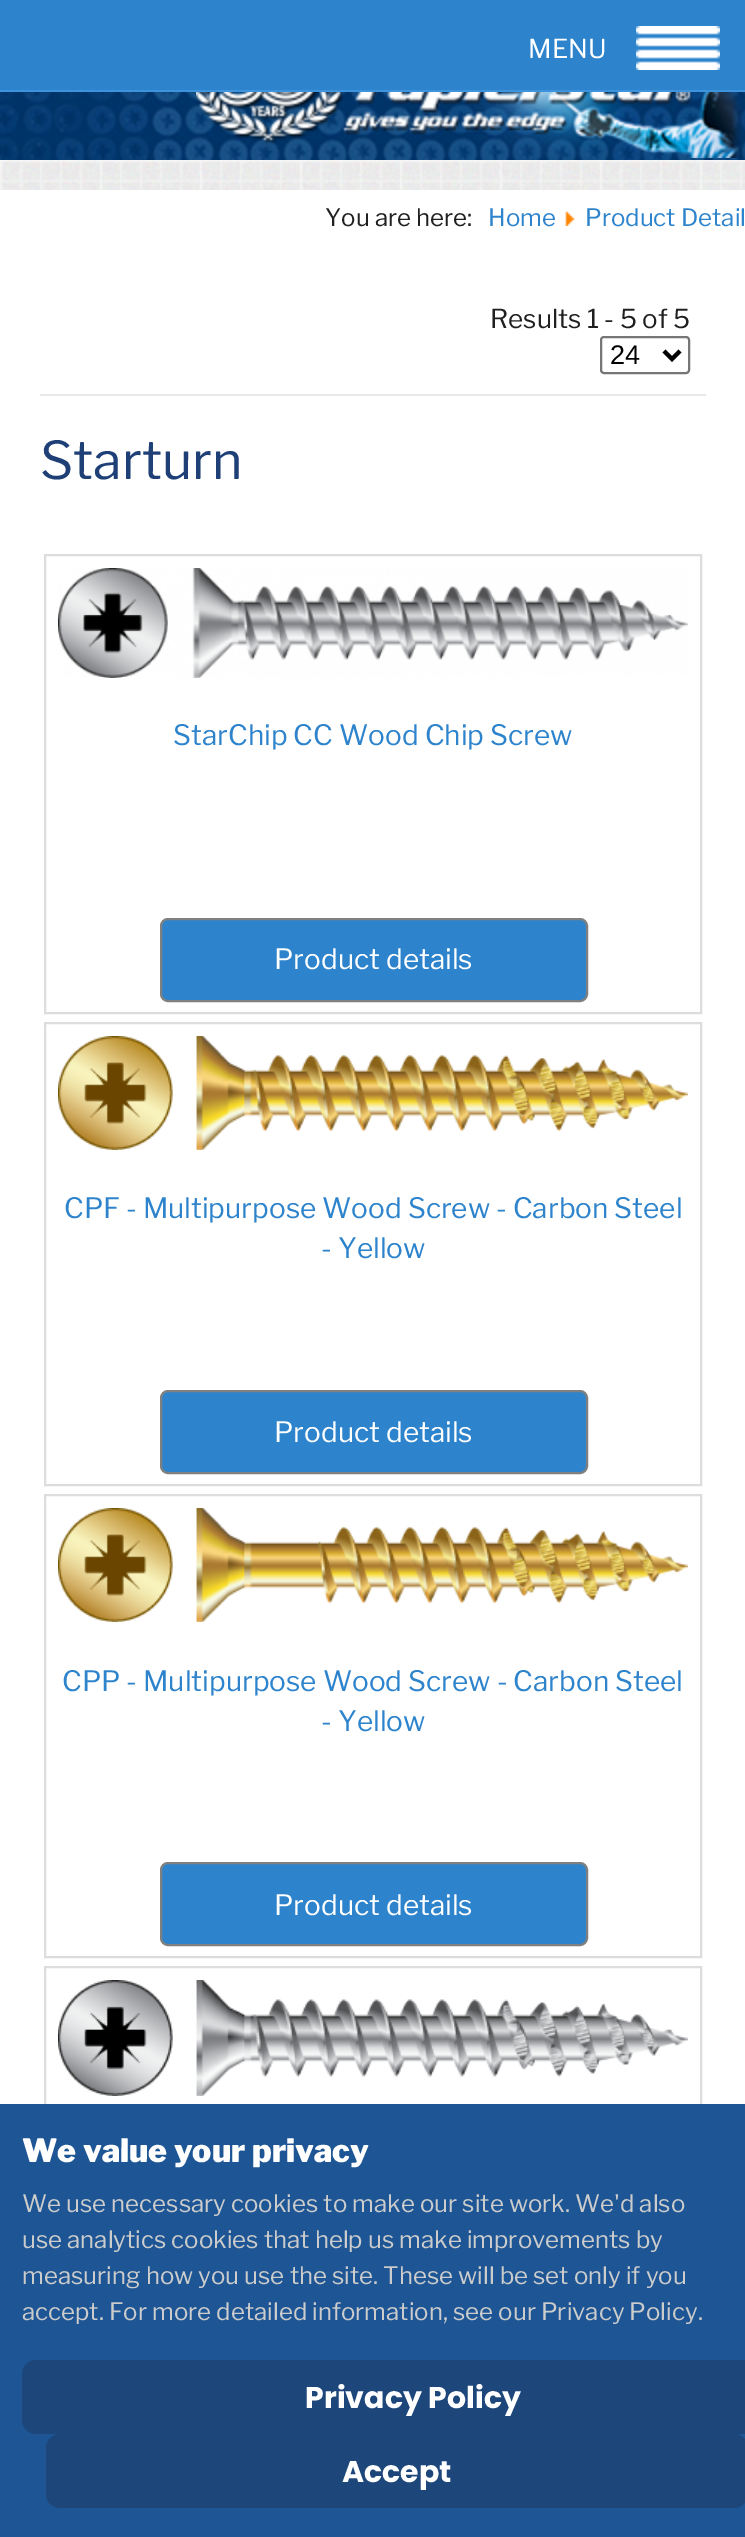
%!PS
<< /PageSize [745 2537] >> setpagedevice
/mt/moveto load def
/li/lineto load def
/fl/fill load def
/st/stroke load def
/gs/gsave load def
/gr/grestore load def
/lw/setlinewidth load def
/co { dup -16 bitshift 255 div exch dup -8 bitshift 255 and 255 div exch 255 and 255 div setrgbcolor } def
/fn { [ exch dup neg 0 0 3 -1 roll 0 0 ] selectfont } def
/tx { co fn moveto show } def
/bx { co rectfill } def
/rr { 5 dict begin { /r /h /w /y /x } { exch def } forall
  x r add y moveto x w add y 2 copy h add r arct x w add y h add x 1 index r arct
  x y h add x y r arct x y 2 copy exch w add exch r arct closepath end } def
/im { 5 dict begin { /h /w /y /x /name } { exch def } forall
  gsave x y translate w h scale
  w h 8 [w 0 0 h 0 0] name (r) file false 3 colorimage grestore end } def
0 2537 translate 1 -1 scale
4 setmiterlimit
0 0 745 2537 16#FFFFFF bx
0 0 745 90 16#2D84CC bx
0 90 745 2 16#3D94DC bx
(media/1.raw) 636 26 84 44 im
(media/2.raw) 0 92 745 68 im
(media/3.raw) 196 92 547 66 im
(media/4.raw) 0 160 745 30 im
(media/5.raw) 565 211 10 15 im
40 394 666 2 16#E9E8E8 bx
16#767676 co
2 lw
601 337 88 36 3 rr st
16#000000 co
4 lw
664 351 mt 672 359 li 680 351 li st
16#DDDDDD co
2 lw
45 555 656 458 rectstroke
(media/6.raw) 58 568 630 110 im
16#2D84CC co
161 919 426 82 7 rr gs fl gr
16#808080 co
st
16#DDDDDD co
45 1023 656 462 rectstroke
(media/7.raw) 58 1036 630 114 im
16#2D84CC co
161 1391 426 82 7 rr gs fl gr
16#808080 co
st
16#DDDDDD co
45 1495 656 462 rectstroke
(media/8.raw) 58 1508 630 114 im
16#2D84CC co
161 1863 426 82 7 rr gs fl gr
16#808080 co
st
16#DDDDDD co
45 1967 656 464 rectstroke
(media/9.raw) 58 1980 630 116 im
0 2104 745 433 16#1E5695 bx
16#1D467A co
22 2360 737 74 14 rr fl
46 2434 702 74 14 rr fl
(MENU) 528 58 /LibreFranklin-Regular 26 16#FFFFFF tx
(You are here:) 325 226 /LibreFranklin-Regular 24 16#202020 tx
(Home) 488 226 /LibreFranklin-Regular 24 16#2D84CC tx
(Product Detail) 585 226 /LibreFranklin-Regular 24 16#2D84CC tx
(Results 1 - 5 of 5) 490 328 /LibreFranklin-Regular 26 16#202020 tx
(24) 610 364 /LiberationSans-Regular 27 16#000000 tx
(Starturn) 40 479 /LibreFranklin-Regular 52 16#1F4077 tx
(StarChip CC Wood Chip Screw) 173 745 /LibreFranklin-Regular 28 16#2D84CC tx
(Product details) 274 969 /LibreFranklin-Regular 28 16#FFFFFF tx
(CPF - Multipurpose Wood Screw - Carbon Steel) 64 1218 /LibreFranklin-Regular 28 16#2D84CC tx
(- Yellow) 321 1258 /LibreFranklin-Regular 28 16#2D84CC tx
(Product details) 274 1442 /LibreFranklin-Regular 28 16#FFFFFF tx
(CPP - Multipurpose Wood Screw - Carbon Steel) 62 1691 /LibreFranklin-Regular 28 16#2D84CC tx
(- Yellow) 321 1731 /LibreFranklin-Regular 28 16#2D84CC tx
(Product details) 274 1915 /LibreFranklin-Regular 28 16#FFFFFF tx
(We value your privacy) 22 2162 /LibreFranklin-Black 32 16#FFFFFF tx
(We use necessary cookies to make our site work. We'd also) 22 2212 /LibreFranklin-Regular 24 16#CCCCCC tx
(use analytics cookies that help us make improvements by) 22 2248 /LibreFranklin-Regular 24 16#CCCCCC tx
(measuring how you use the site. These will be set only if you) 22 2284 /LibreFranklin-Regular 24 16#CCCCCC tx
(accept. For more detailed information, see our Privacy Policy.) 22 2320 /LibreFranklin-Regular 24 16#CCCCCC tx
(Privacy Policy) 305 2408 /Poppins-Bold 30 16#FFFFFF tx
(Accept) 342 2482 /Poppins-Bold 30 16#FFFFFF tx
showpage
